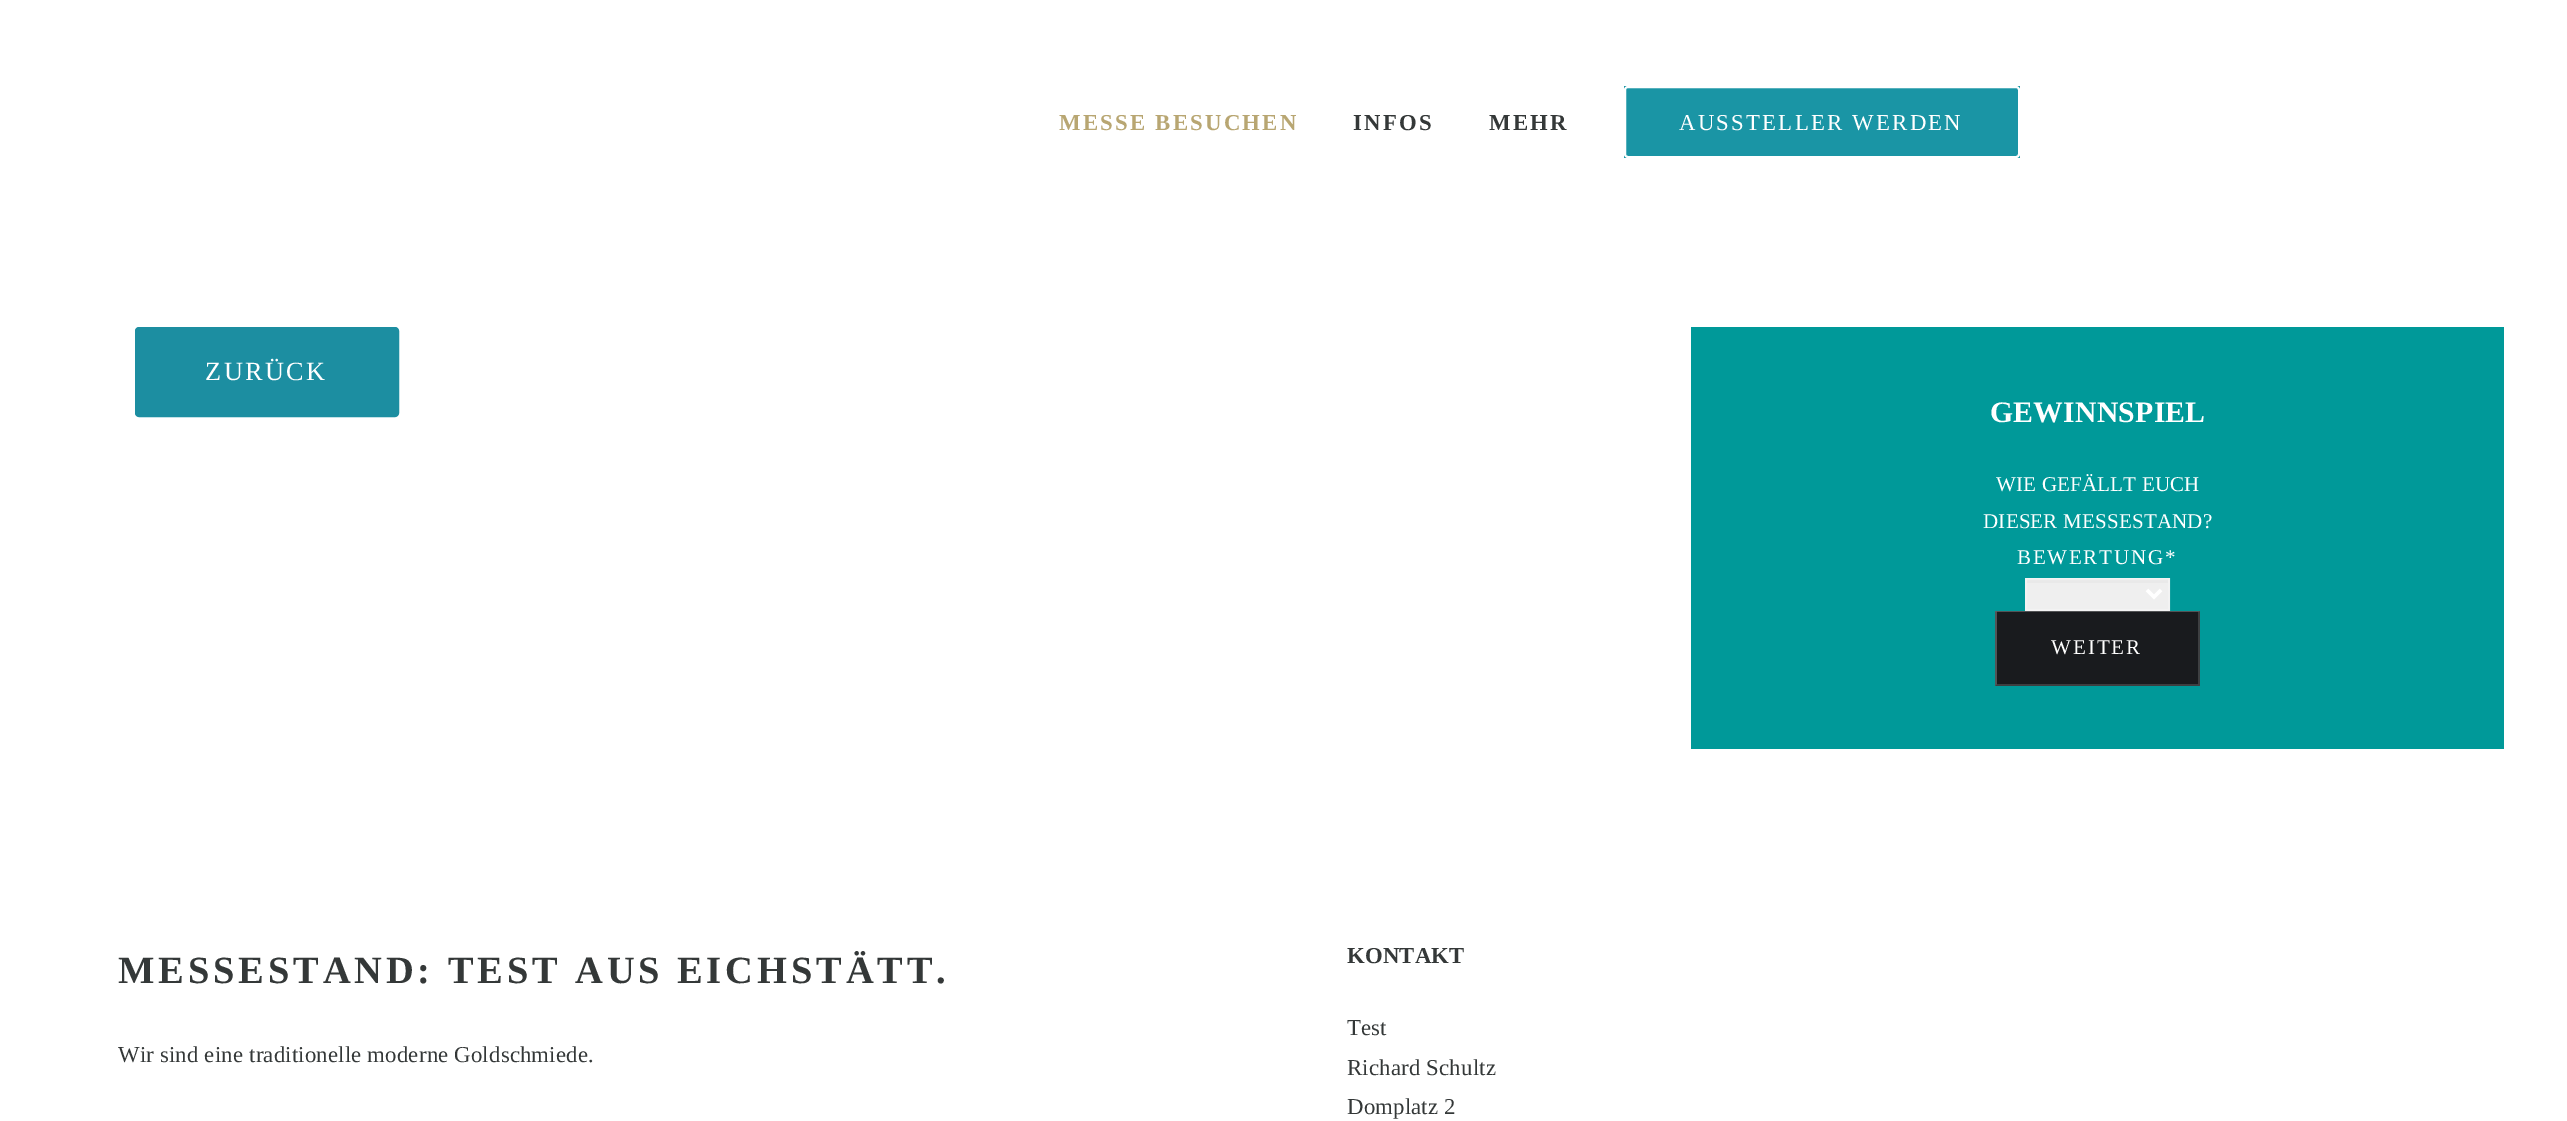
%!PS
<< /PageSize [2567 1121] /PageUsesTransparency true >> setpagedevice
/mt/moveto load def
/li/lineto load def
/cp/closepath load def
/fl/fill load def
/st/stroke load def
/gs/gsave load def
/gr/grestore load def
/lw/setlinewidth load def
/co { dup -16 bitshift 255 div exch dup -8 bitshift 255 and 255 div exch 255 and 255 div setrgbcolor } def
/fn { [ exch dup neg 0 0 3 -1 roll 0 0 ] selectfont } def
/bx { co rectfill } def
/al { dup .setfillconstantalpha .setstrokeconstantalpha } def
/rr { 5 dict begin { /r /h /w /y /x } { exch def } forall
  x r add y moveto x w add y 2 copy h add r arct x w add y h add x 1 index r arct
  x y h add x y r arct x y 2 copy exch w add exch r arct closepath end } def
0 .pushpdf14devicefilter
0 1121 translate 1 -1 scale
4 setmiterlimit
0 0 2567 1121 16#FFFFFF bx
1624 86 396 72 16#1A95A5 bx
16#FFFFFF co
2 lw
1625 87 394 70 3 rr st
16#1C8EA1 co
136 328 262 88 3 rr gs fl gr
st
1691 327 813 422 16#009999 bx
2025 578 145 33 16#EFEFEF bx
2027 579 141 4 16#E9E9E9 bx
0.25 al
16#FFFFFF co
2026 579 143 31 rectstroke
1 al
3.5 lw
2147 590 mt 2154 597 li 2161 590 li st
1995 611 205 75 16#191B1E bx
16#535456 co
1995 611 mt 2200 611 li 2198 612 li 1997 612 li cp fl
0.25 al
16#AAAAAA co
2200 611 mt 2200 686 li 2198 684 li 2198 612 li cp fl
2200 686 mt 1995 686 li 1997 684 li 2198 684 li cp fl
16#FFFFFF co
1995 686 mt 1995 611 li 1997 612 li 1997 684 li cp fl
/LiberationSerif-Bold 22.75 fn
1 al
16#B8A672 co
1059 130 mt 2.25 0 (MESSE BESUCHEN) ashow
16#343838 co
1353 130 mt 2.25 0 (INFOS) ashow
1489 130 mt 2.25 0 (MEHR) ashow
/LiberationSerif-Regular 22.75 fn
16#FFFFFF co
1679 130 mt 2.25 0 (AUSSTELLER WERDEN) ashow
/LiberationSerif-Regular 26.25 fn
205 380 mt 2.5 0 (ZURÜCK) ashow
/LiberationSerif-Bold 29.75 fn
1990 422 mt .2 0 (GEWINNSPIEL) ashow
/LiberationSerif-Regular 21 fn
1996 491 mt .2 0 (WIE GEFÄLLT EUCH) ashow
1983 528 mt .2 0 (DIESER MESSESTAND?) ashow
2017 564 mt 1.75 0 (BEWERTUNG*) ashow
2051 654 mt 2 0 (WEITER) ashow
/LiberationSerif-Bold 38.5 fn
16#343838 co
118 983 mt 3.85 0 (MESSESTAND: TEST AUS EICHSTÄTT.) ashow
/LiberationSerif-Regular 22.75 fn
118 1062 mt .2 0 (Wir sind eine traditionelle moderne Goldschmiede.) ashow
/LiberationSerif-Bold 22.75 fn
1347 963 mt .2 0 (KONTAKT) ashow
/LiberationSerif-Regular 22.75 fn
1347 1035 mt .2 0 (Test) ashow
1347 1075 mt .2 0 (Richard Schultz) ashow
1347 1114 mt .2 0 (Domplatz 2) ashow
.poppdf14devicefilter showpage
